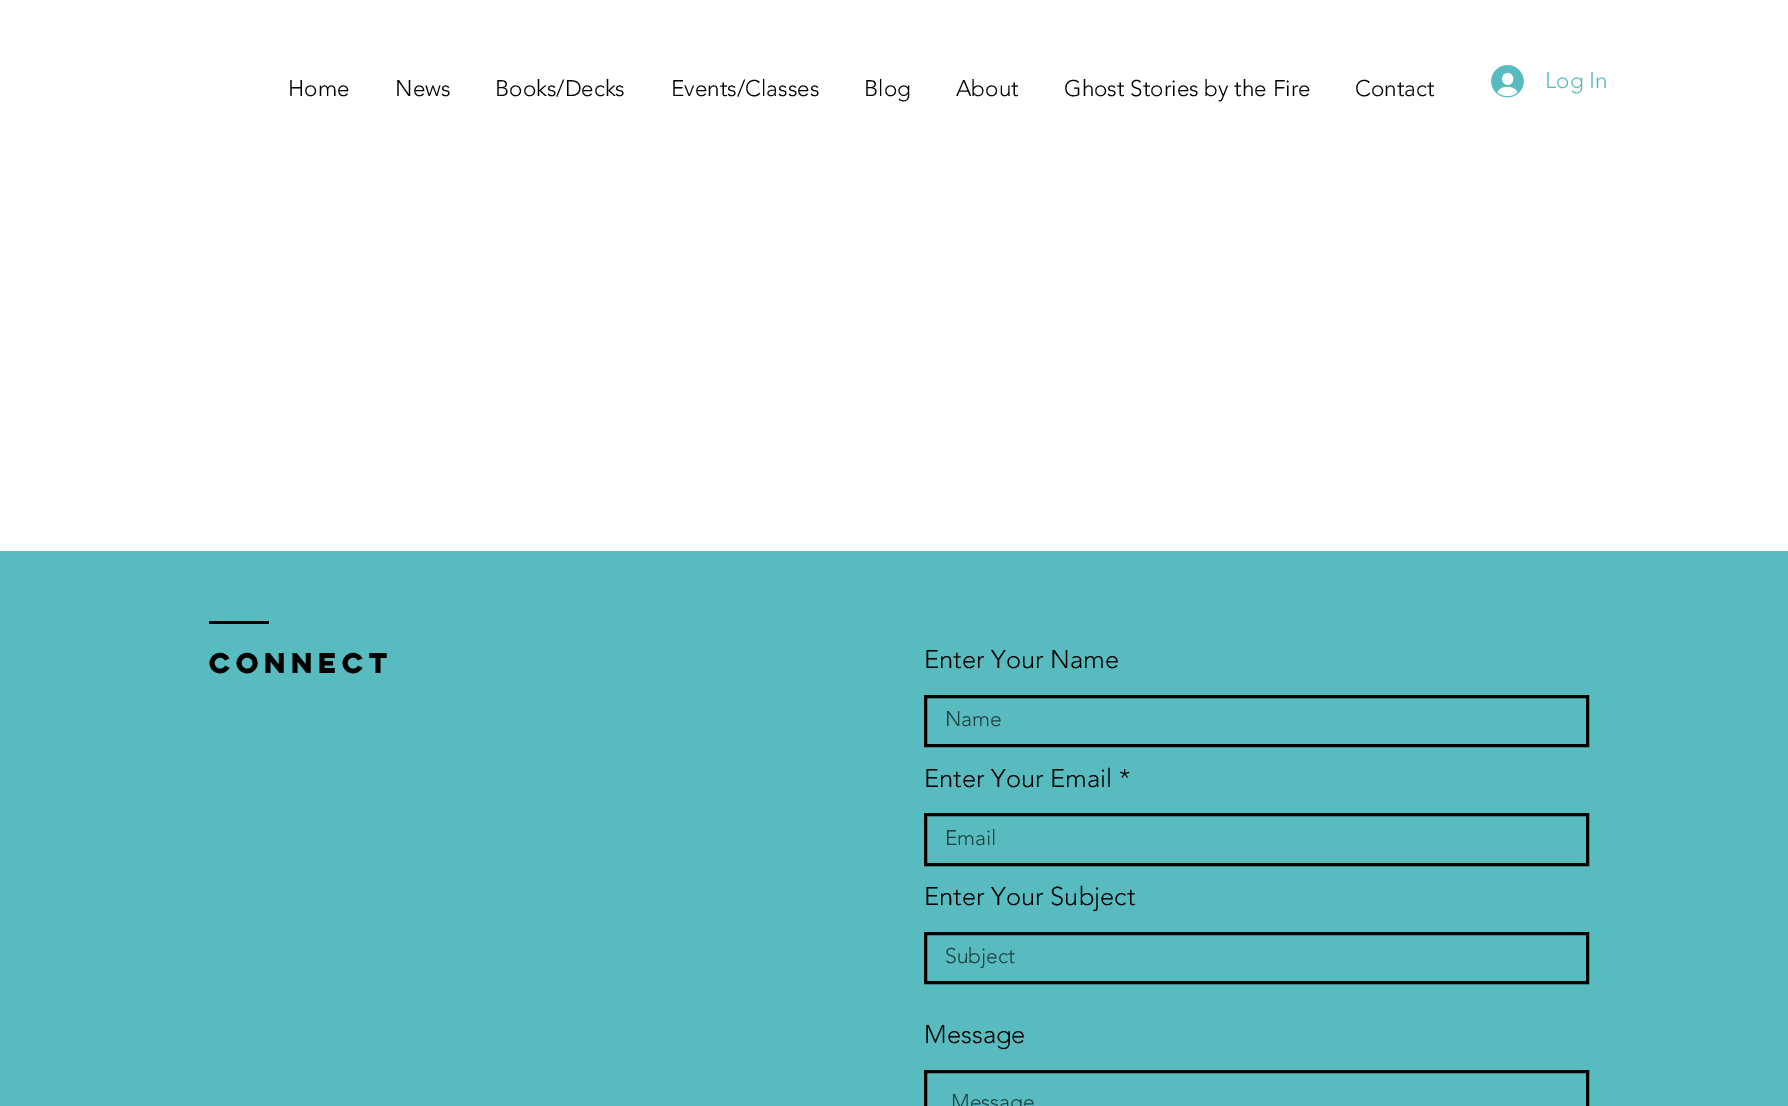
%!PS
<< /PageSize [1788 1106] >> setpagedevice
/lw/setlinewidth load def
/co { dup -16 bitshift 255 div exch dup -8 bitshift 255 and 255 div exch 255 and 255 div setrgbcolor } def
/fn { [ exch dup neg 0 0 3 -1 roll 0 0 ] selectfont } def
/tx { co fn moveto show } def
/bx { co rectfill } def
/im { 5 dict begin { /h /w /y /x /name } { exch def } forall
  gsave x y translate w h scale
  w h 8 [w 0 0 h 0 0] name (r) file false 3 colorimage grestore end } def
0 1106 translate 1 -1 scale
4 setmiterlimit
0 0 1788 1106 16#FFFFFF bx
(media/1.raw) 1491 65 33 33 im
0 551 1788 555 16#57BBBF bx
209 621 60 3 16#000000 bx
3 lw
925.5 696.5 662 49 rectstroke
925.5 814.5 662 50 rectstroke
925.5 933.5 662 49 rectstroke
925.5 1071.5 662 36 rectstroke
(Home) 288 96 /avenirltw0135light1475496-Light 22.5 16#000000 tx
(News) 395 96 /avenirltw0135light1475496-Light 22.5 16#000000 tx
(Books/Decks) 495 96 /avenirltw0135light1475496-Light 22.5 16#000000 tx
(Events/Classes) 671 96 /avenirltw0135light1475496-Light 22.5 16#000000 tx
(Blog) 864 96 /avenirltw0135light1475496-Light 22.5 16#000000 tx
(About) 956 96 /avenirltw0135light1475496-Light 22.5 16#000000 tx
(Ghost Stories by the Fire) 1064 96 /avenirltw0135light1475496-Light 22.5 16#000000 tx
(Contact) 1355 96 /avenirltw0135light1475496-Light 22.5 16#000000 tx
(Log In) 1545 88 /avenirltw0135light1475496-Light 22.5 16#57BBBF tx
(CONNECT) 209 673 /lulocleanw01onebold-Bold 25.5 16#000000 tx
(Enter Your Name) 924 668 /avenirltw0135light1475496-Light 25.5 16#000000 tx
(Name) 945 726 /avenirltw0135light1475496-Light 21 16#1D3E40 tx
(Enter Your Email *) 924 787 /avenirltw0135light1475496-Light 25.5 16#000000 tx
(Email) 945 845 /avenirltw0135light1475496-Light 21 16#1D3E40 tx
(Enter Your Subject) 924 905 /avenirltw0135light1475496-Light 25.5 16#000000 tx
(Subject) 945 963 /avenirltw0135light1475496-Light 21 16#1D3E40 tx
(Message) 924 1043 /avenirltw0135light1475496-Light 25.5 16#000000 tx
(Message) 951 1109 /avenirltw0135light1475496-Light 21 16#1D3E40 tx
showpage
